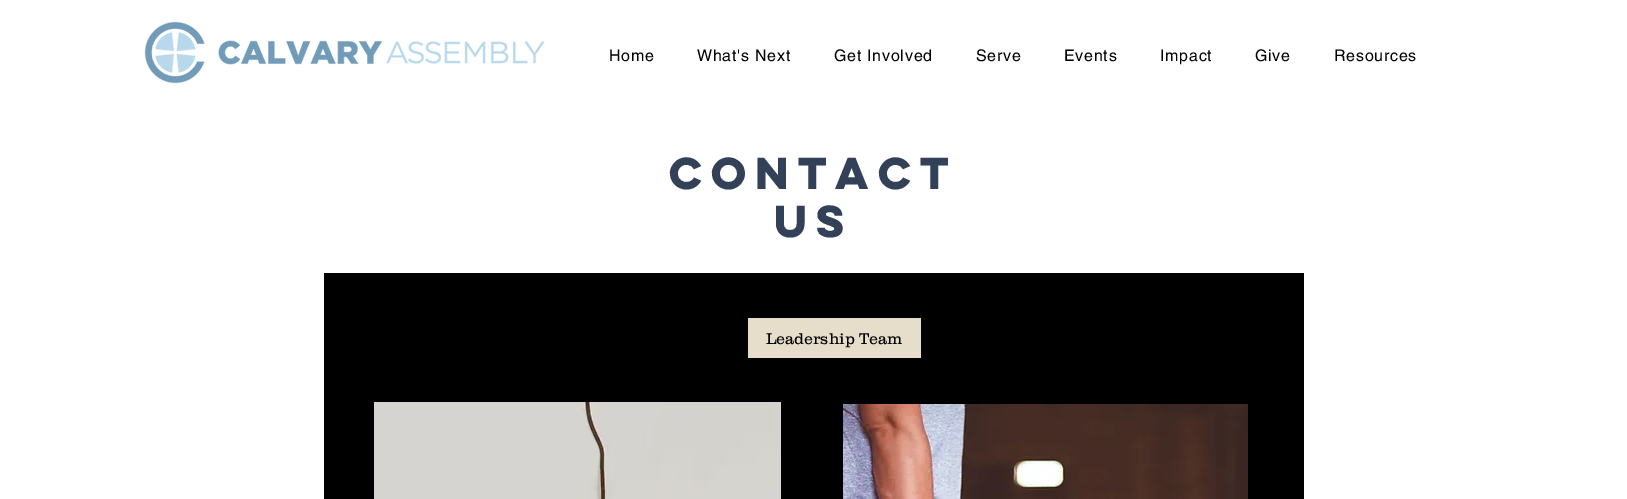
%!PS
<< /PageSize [1627 499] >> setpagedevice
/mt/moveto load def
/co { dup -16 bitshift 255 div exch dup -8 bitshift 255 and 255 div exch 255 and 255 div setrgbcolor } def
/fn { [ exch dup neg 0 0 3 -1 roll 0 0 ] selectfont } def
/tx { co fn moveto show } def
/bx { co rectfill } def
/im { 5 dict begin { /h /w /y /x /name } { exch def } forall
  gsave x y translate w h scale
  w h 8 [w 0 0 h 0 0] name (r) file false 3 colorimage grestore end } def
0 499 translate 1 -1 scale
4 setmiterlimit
0 0 1627 499 16#FFFFFF bx
(media/1.raw) 144 21 401 63 im
324 273 980 226 16#000000 bx
748 318 173 40 16#E6DECA bx
(media/2.raw) 374 402 407 97 im
(media/3.raw) 843 404 405 95 im
/helvetica-Regular 16 fn
16#000000 co
609 61 mt .75 0 (Home) ashow
697 61 mt .75 0 (What's Next) ashow
834 61 mt .75 0 (Get Involved) ashow
976 61 mt .75 0 (Serve) ashow
1064 61 mt .75 0 (Events) ashow
1160 61 mt .75 0 (Impact) ashow
1255 61 mt .75 0 (Give) ashow
1334 61 mt .75 0 (Resources) ashow
(Contact) 669 189 /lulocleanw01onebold-Bold 40 16#324158 tx
(Us) 774 237 /lulocleanw01onebold-Bold 40 16#324158 tx
(Leadership Team) 766 344 /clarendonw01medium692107-Light 16 16#000000 tx
showpage
